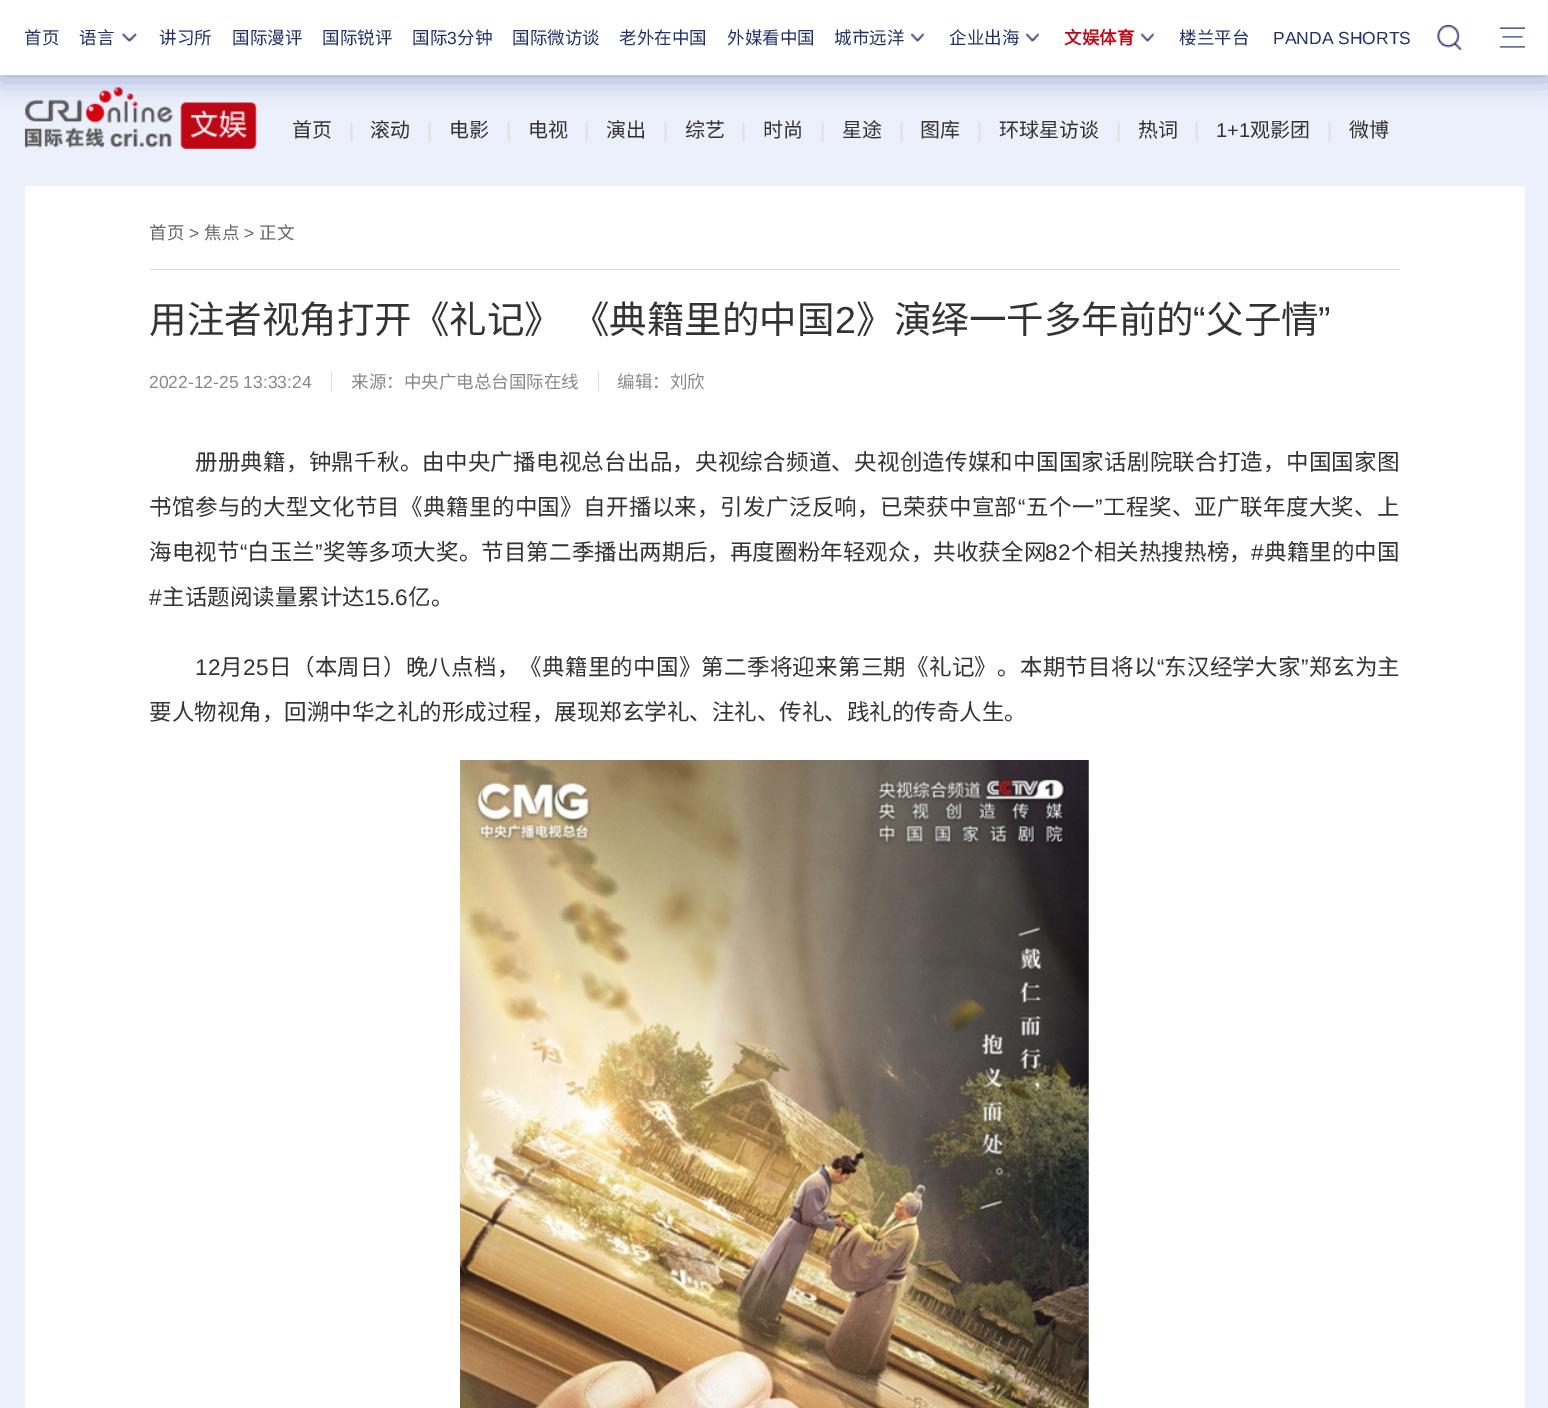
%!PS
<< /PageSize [1548 1408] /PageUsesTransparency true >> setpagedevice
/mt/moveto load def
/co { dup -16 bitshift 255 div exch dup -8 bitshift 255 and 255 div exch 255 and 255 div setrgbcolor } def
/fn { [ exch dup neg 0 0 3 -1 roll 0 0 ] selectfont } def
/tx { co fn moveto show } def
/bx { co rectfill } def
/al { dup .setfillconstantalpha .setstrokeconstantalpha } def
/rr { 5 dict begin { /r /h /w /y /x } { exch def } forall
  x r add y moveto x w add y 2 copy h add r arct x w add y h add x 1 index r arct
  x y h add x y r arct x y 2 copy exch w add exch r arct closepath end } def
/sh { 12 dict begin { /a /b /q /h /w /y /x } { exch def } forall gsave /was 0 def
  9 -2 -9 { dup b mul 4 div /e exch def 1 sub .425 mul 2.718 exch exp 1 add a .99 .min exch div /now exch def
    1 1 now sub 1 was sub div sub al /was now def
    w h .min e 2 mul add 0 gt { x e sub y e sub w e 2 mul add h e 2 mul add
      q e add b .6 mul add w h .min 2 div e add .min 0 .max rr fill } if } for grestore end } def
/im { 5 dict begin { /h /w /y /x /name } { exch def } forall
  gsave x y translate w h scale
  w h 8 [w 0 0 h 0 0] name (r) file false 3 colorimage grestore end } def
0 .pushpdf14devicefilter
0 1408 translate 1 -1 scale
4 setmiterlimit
0 0 1548 1408 16#ECF0FB bx
(media/5.raw) 25 87 232 62 im
16#4356AA co
0 6 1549 75 0 12.5 .4 sh
0 0 1548 75 16#FFFFFF bx
(media/1.raw) 122 33 15 9 im
(media/2.raw) 911 33 13 9 im
(media/2.raw) 1026 33 13 9 im
(media/2.raw) 1141 33 13 9 im
(media/3.raw) 1437 25 25 25 im
(media/4.raw) 1500 27 25 21 im
25 186 1500 1222 16#FFFFFF bx
150 269 1250 1 16#DBDBDB bx
331 371 1 20 16#DEDEDE bx
598 371 1 20 16#DEDEDE bx
(media/6.raw) 460 760 629 648 im
(首页) 24 44 /NotoSansCJKSC-Regular 17.5 16#22306D tx
(语言) 79 44 /NotoSansCJKSC-Regular 17.5 16#22306D tx
(讲习所) 159 44 /NotoSansCJKSC-Regular 17.5 16#22306D tx
(国际漫评) 232 44 /NotoSansCJKSC-Regular 17.5 16#22306D tx
(国际锐评) 322 44 /NotoSansCJKSC-Regular 17.5 16#22306D tx
(国际) 412 44 /NotoSansCJKSC-Regular 17.5 16#22306D tx
(3) 447 44 /LiberationSans-Regular 17.5 16#22306D tx
(分钟) 457 44 /NotoSansCJKSC-Regular 17.5 16#22306D tx
(国际微访谈) 512 44 /NotoSansCJKSC-Regular 17.5 16#22306D tx
(老外在中国) 619 44 /NotoSansCJKSC-Regular 17.5 16#22306D tx
(外媒看中国) 727 44 /NotoSansCJKSC-Regular 17.5 16#22306D tx
(城市远洋) 834 44 /NotoSansCJKSC-Regular 17.5 16#22306D tx
(企业出海) 949 44 /NotoSansCJKSC-Regular 17.5 16#22306D tx
(文娱体育) 1064 44 /NotoSansCJKSC-Bold 17.5 16#BF0614 tx
(楼兰平台) 1179 44 /NotoSansCJKSC-Regular 17.5 16#22306D tx
(PANDA SHORTS) 1273 44 /LiberationSans-Regular 17.5 16#22306D tx
(首页) 292 137 /NotoSansCJKSC-Regular 20 16#333333 tx
(|) 349 137 /LiberationSans-Regular 20 16#DFDFDF tx
(滚动) 370 137 /NotoSansCJKSC-Regular 20 16#333333 tx
(|) 427 137 /LiberationSans-Regular 20 16#DFDFDF tx
(电影) 449 137 /NotoSansCJKSC-Regular 20 16#333333 tx
(|) 506 137 /LiberationSans-Regular 20 16#DFDFDF tx
(电视) 528 137 /NotoSansCJKSC-Regular 20 16#333333 tx
(|) 584 137 /LiberationSans-Regular 20 16#DFDFDF tx
(演出) 606 137 /NotoSansCJKSC-Regular 20 16#333333 tx
(|) 663 137 /LiberationSans-Regular 20 16#DFDFDF tx
(综艺) 685 137 /NotoSansCJKSC-Regular 20 16#333333 tx
(|) 741 137 /LiberationSans-Regular 20 16#DFDFDF tx
(时尚) 763 137 /NotoSansCJKSC-Regular 20 16#333333 tx
(|) 820 137 /LiberationSans-Regular 20 16#DFDFDF tx
(星途) 842 137 /NotoSansCJKSC-Regular 20 16#333333 tx
(|) 899 137 /LiberationSans-Regular 20 16#DFDFDF tx
(图库) 920 137 /NotoSansCJKSC-Regular 20 16#333333 tx
(|) 977 137 /LiberationSans-Regular 20 16#DFDFDF tx
(环球星访谈) 999 137 /NotoSansCJKSC-Regular 20 16#333333 tx
(|) 1116 137 /LiberationSans-Regular 20 16#DFDFDF tx
(热词) 1138 137 /NotoSansCJKSC-Regular 20 16#333333 tx
(|) 1194 137 /LiberationSans-Regular 20 16#DFDFDF tx
(1+1) 1216 137 /LiberationSans-Regular 20 16#333333 tx
(观影团) 1250 137 /NotoSansCJKSC-Regular 20 16#333333 tx
(|) 1327 137 /LiberationSans-Regular 20 16#DFDFDF tx
(微博) 1349 137 /NotoSansCJKSC-Regular 20 16#333333 tx
(首页) 149 239 /NotoSansCJKSC-Regular 17.5 16#666666 tx
(>) 189 239 /LiberationSans-Regular 17.5 16#666666 tx
(焦点) 204 239 /NotoSansCJKSC-Regular 17.5 16#666666 tx
(>) 244 239 /LiberationSans-Regular 17.5 16#666666 tx
(正文) 259 239 /NotoSansCJKSC-Regular 17.5 16#666666 tx
/NotoSansCJKSC-Regular 37.5 fn
16#333333 co
149 333 mt 2 0 32 (用注者视角打开《礼记》 《典籍里的中国) widthshow
(2) 835 333 /LiberationSans-Regular 37.5 16#333333 tx
(》演绎一千多年前的) 856 333 /NotoSansCJKSC-Regular 37.5 16#333333 tx
(“) 1193 333 /LiberationSans-Regular 37.5 16#333333 tx
(父子情) 1206 333 /NotoSansCJKSC-Regular 37.5 16#333333 tx
(”) 1318 333 /LiberationSans-Regular 37.5 16#333333 tx
(2022-12-25 13:33:24) 149 388 /LiberationSans-Regular 17.5 16#888888 tx
(来源：中央广电总台国际在线) 351 388 /NotoSansCJKSC-Regular 17.5 16#888888 tx
(编辑：刘欣) 617 388 /NotoSansCJKSC-Regular 17.5 16#888888 tx
/NotoSansCJKSC-Regular 22.5 fn
16#333333 co
195 470 mt .23 0 (册册典籍，钟鼎千秋。由中央广播电视总台出品，央视综合频道、央视创造传媒和中国国家话剧院联合打造，中国国家图) ashow
149 515 mt .35 0 (书馆参与的大型文化节目《典籍里的中国》自开播以来，引发广泛反响，已荣获中宣部) ashow
/LiberationSans-Regular 22.5 fn
1018 515 mt .35 0 (“) ashow
/NotoSansCJKSC-Regular 22.5 fn
1026 515 mt .35 0 (五个一) ashow
/LiberationSans-Regular 22.5 fn
1095 515 mt .35 0 (”) ashow
/NotoSansCJKSC-Regular 22.5 fn
1103 515 mt .35 0 (工程奖、亚广联年度大奖、) ashow
(上) 1377 515 /NotoSansCJKSC-Regular 22.5 16#333333 tx
(海电视节) 149 560 /NotoSansCJKSC-Regular 22.5 16#333333 tx
/LiberationSans-Regular 22.5 fn
240 560 mt .1 0 (“) ashow
/NotoSansCJKSC-Regular 22.5 fn
247 560 mt .1 0 (白玉兰) ashow
/LiberationSans-Regular 22.5 fn
315 560 mt .1 0 (”) ashow
/NotoSansCJKSC-Regular 22.5 fn
323 560 mt .1 0 (奖等多项大奖。节目第二季播出两期后，再度圈粉年轻观众，共收获全网) ashow
/LiberationSans-Regular 22.5 fn
1045 560 mt .1 0 (82) ashow
/NotoSansCJKSC-Regular 22.5 fn
1071 560 mt .1 0 (个相关热搜热榜，) ashow
/LiberationSans-Regular 22.5 fn
1251 560 mt .1 0 (#) ashow
/NotoSansCJKSC-Regular 22.5 fn
1264 560 mt .1 0 (典籍里的中国) ashow
(#) 149 605 /LiberationSans-Regular 22.5 16#333333 tx
(主话题阅读量累计达) 162 605 /NotoSansCJKSC-Regular 22.5 16#333333 tx
(15.6) 364 605 /LiberationSans-Regular 22.5 16#333333 tx
(亿。) 408 605 /NotoSansCJKSC-Regular 22.5 16#333333 tx
/LiberationSans-Regular 22.5 fn
195 675 mt .25 0 (12) ashow
/NotoSansCJKSC-Regular 22.5 fn
220 675 mt .25 0 (月) ashow
/LiberationSans-Regular 22.5 fn
243 675 mt .25 0 (25) ashow
/NotoSansCJKSC-Regular 22.5 fn
269 675 mt .25 0 (日（本周日）晚八点档，《典籍里的中国》第二季将迎来第三期《礼记》。本期节目将以) ashow
/LiberationSans-Regular 22.5 fn
1157 675 mt .25 0 (“) ashow
/NotoSansCJKSC-Regular 22.5 fn
1164 675 mt .25 0 (东汉经学大家) ashow
/LiberationSans-Regular 22.5 fn
1301 675 mt .25 0 (”) ashow
/NotoSansCJKSC-Regular 22.5 fn
1309 675 mt .25 0 (郑玄为主) ashow
(要人物视角，回溯中华之礼的形成过程，展现郑玄学礼、注礼、传礼、践礼的传奇人生。) 149 720 /NotoSansCJKSC-Regular 22.5 16#333333 tx
.poppdf14devicefilter showpage
